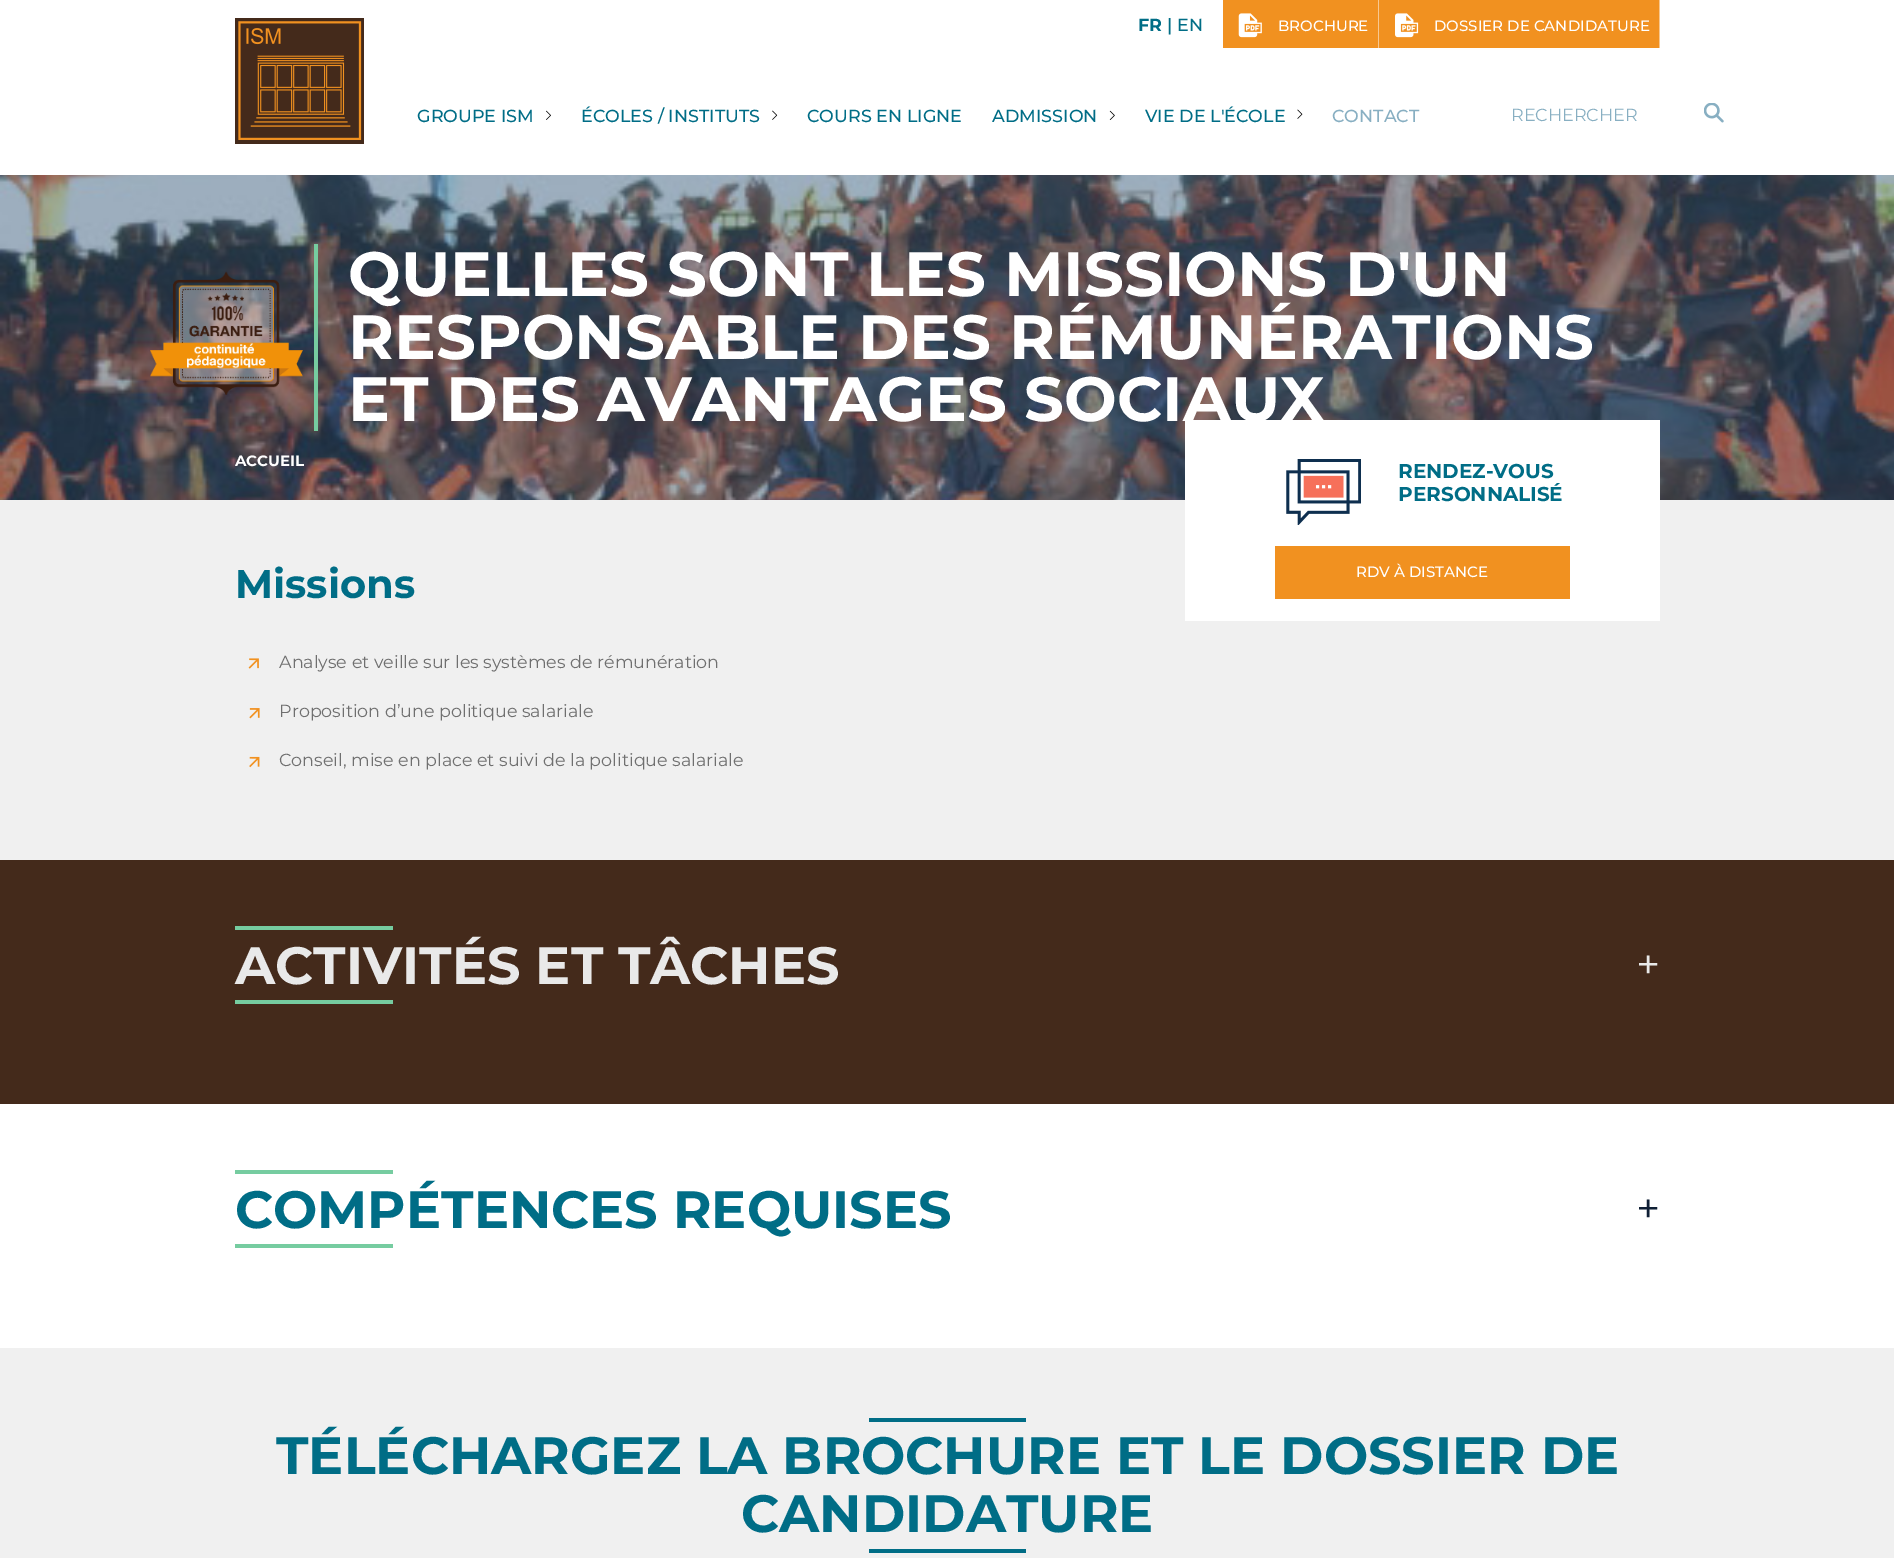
%!PS
<< /PageSize [1894 1558] >> setpagedevice
/co { dup -16 bitshift 255 div exch dup -8 bitshift 255 and 255 div exch 255 and 255 div setrgbcolor } def
/fn { [ exch dup neg 0 0 3 -1 roll 0 0 ] selectfont } def
/tx { co fn moveto show } def
/bx { co rectfill } def
/im { 5 dict begin { /h /w /y /x /name } { exch def } forall
  gsave x y translate w h scale
  w h 8 [w 0 0 h 0 0] name (r) file false 3 colorimage grestore end } def
0 1558 translate 1 -1 scale
4 setmiterlimit
0 0 1894 1558 16#FFFFFF bx
1223 0 155 48 16#F19120 bx
(media/1.raw) 1238 13 24 25 im
1379 0 280 48 16#F19120 bx
1659 0 1 48 16#F8C890 bx
1378 0 1 48 16#F8C890 bx
(media/2.raw) 1395 13 24 25 im
(media/3.raw) 235 18 129 126 im
(media/4.raw) 546 110 5 10 im
(media/5.raw) 772 110 6 10 im
(media/6.raw) 1109 110 6 10 im
(media/7.raw) 1297 109 6 10 im
(media/8.raw) 1704 103 20 20 im
(media/9.raw) 0 175 1894 325 im
(media/10.raw) 150 271 153 124 im
314 244 4 187 16#76CCA0 bx
0 500 1894 360 16#F0F0F0 bx
1185 420 475 201 16#FFFFFF bx
(media/11.raw) 1286 459 75 66 im
1275 546 295 53 16#F19120 bx
(media/12.raw) 248 658 11 11 im
(media/13.raw) 249 708 11 11 im
(media/14.raw) 249 756 11 12 im
0 860 1894 244 16#442A1B bx
235 926 158 4 16#76CCA0 bx
235 1000 158 4 16#76CCA0 bx
235 1170 158 4 16#76CCA0 bx
235 1244 158 4 16#76CCA0 bx
0 1348 1894 210 16#F0F0F0 bx
869 1418 157 4 16#006D86 bx
869 1549 157 4 16#006D86 bx
(FR) 1138 31 /Montserrat-Bold 17.5 16#006D86 tx
(| EN) 1167 31 /Montserrat-Medium 17.5 16#006D86 tx
(BROCHURE) 1278 31 /Montserrat-Medium 15 16#FFFFFF tx
(DOSSIER DE CANDIDATURE) 1434 31 /Montserrat-Medium 15 16#FFFFFF tx
(GROUPE ISM) 417 122 /Montserrat-Medium 17.5 16#006D86 tx
(ÉCOLES / INSTITUTS) 581 122 /Montserrat-Medium 17.5 16#006D86 tx
(COURS EN LIGNE) 807 122 /Montserrat-Medium 17.5 16#006D86 tx
(ADMISSION) 992 122 /Montserrat-Medium 17.5 16#006D86 tx
(VIE DE L'ÉCOLE) 1145 122 /Montserrat-Medium 17.5 16#006D86 tx
(CONTACT) 1332 122 /Montserrat-Medium 17.5 16#88AFC2 tx
(RECHERCHER) 1511 121 /Montserrat-Regular 17.5 16#88AFC2 tx
(QUELLES SONT LES MISSIONS D'UN) 348 296 /Montserrat-Bold 62.5 16#FFFFFF tx
(RESPONSABLE DES RÉMUNÉRATIONS) 348 359 /Montserrat-Bold 62.5 16#FFFFFF tx
(ET DES AVANTAGES SOCIAUX) 348 421 /Montserrat-Bold 62.5 16#FFFFFF tx
(ACCUEIL) 235 466 /Montserrat-Bold 15 16#FFFFFF tx
(RENDEZ-VOUS) 1398 478 /Montserrat-Bold 20 16#006D86 tx
(PERSONNALISÉ) 1398 501 /Montserrat-Bold 20 16#006D86 tx
(RDV À DISTANCE) 1356 577 /Montserrat-Medium 15 16#FFFFFF tx
(Missions) 235 598 /Montserrat-Bold 40 16#006D86 tx
(Analyse et veille sur les systèmes de rémunération) 279 668 /Montserrat-Regular 17.5 16#6F6F6F tx
(Proposition d’une politique salariale) 279 717 /Montserrat-Regular 17.5 16#6F6F6F tx
(Conseil, mise en place et suivi de la politique salariale) 279 766 /Montserrat-Regular 17.5 16#6F6F6F tx
(ACTIVITÉS ET TÂCHES) 235 984 /Montserrat-Bold 52.5 16#E9E9E9 tx
(+) 1636 979 /Montserrat-Regular 42 16#E9E9E9 tx
(COMPÉTENCES REQUISES) 235 1228 /Montserrat-Bold 52.5 16#006D86 tx
(+) 1636 1223 /Montserrat-Regular 42 16#0F1F35 tx
(TÉLÉCHARGEZ LA BROCHURE ET LE DOSSIER DE) 276 1474 /Montserrat-Bold 52.5 16#006D86 tx
(CANDIDATURE) 741 1532 /Montserrat-Bold 52.5 16#006D86 tx
showpage
